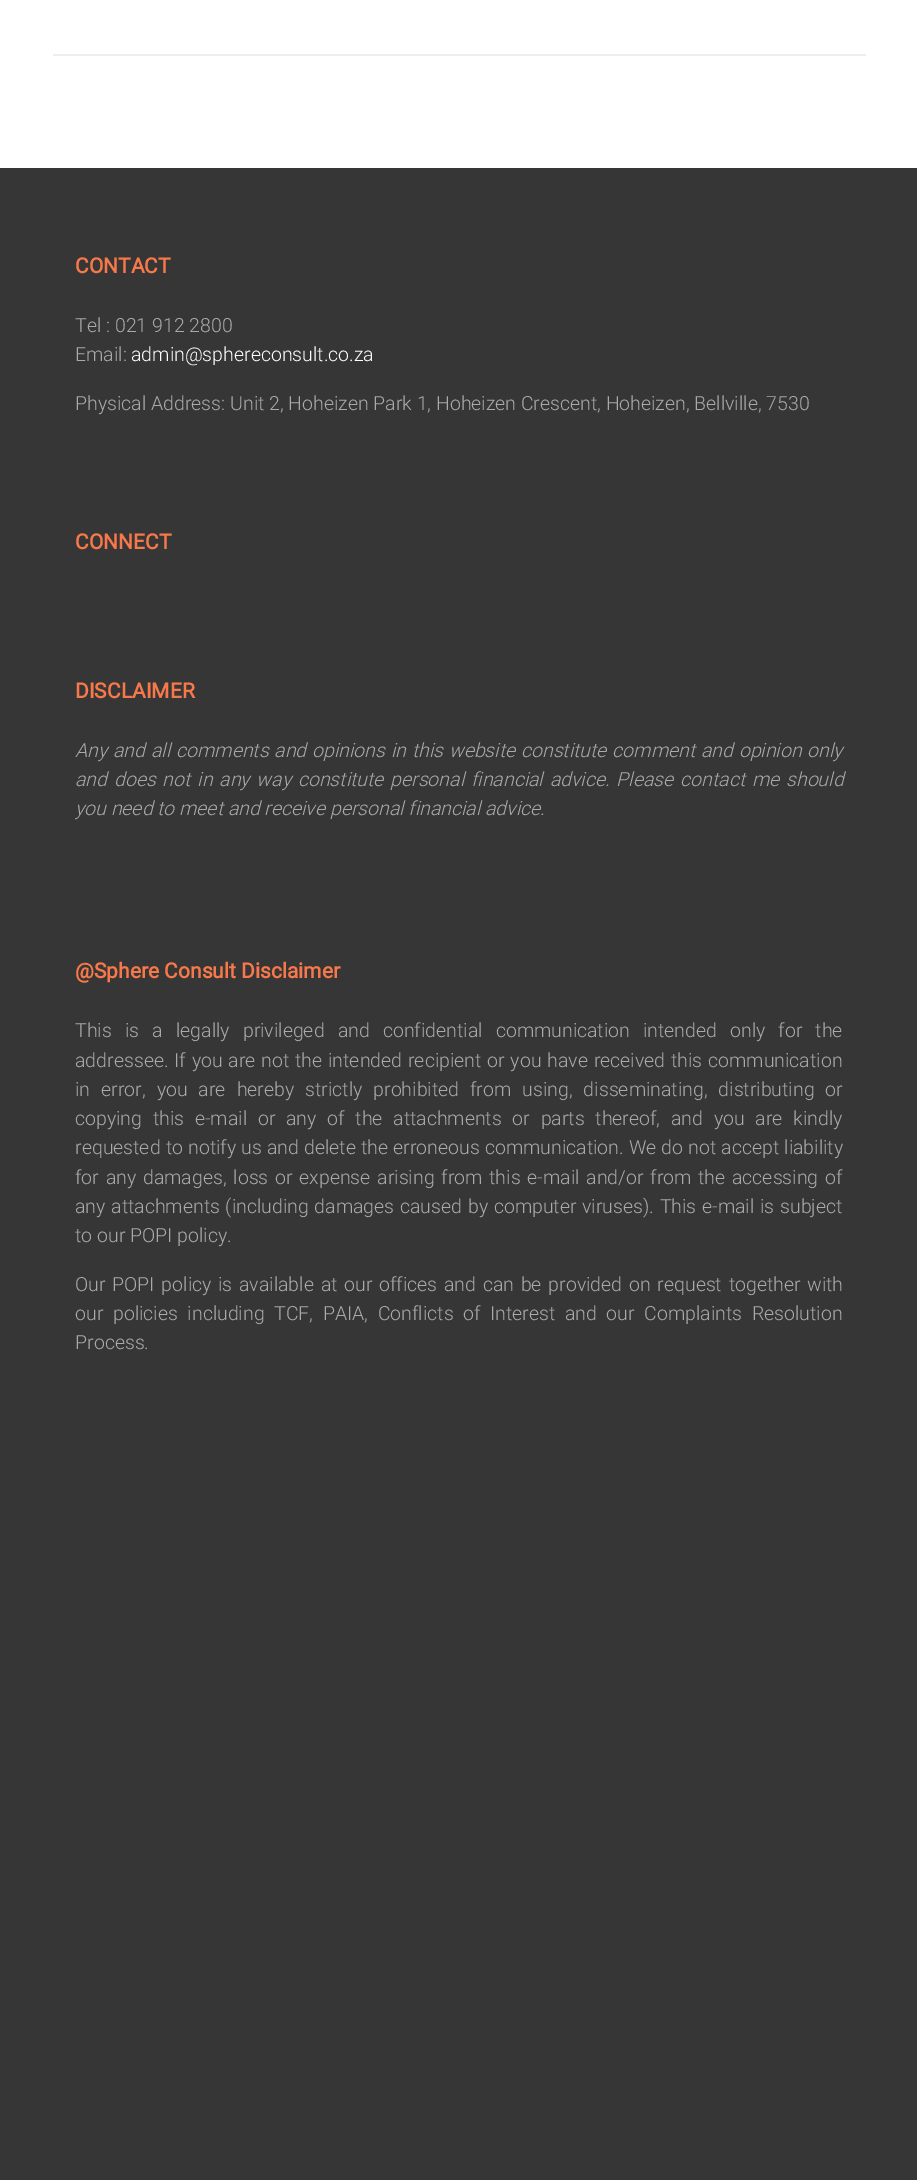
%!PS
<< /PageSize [917 2180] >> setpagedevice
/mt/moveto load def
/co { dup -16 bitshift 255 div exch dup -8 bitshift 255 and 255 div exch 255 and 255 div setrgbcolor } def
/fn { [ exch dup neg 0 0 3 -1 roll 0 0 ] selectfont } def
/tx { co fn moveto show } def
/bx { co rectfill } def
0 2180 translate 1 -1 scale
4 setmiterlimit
0 0 917 2180 16#363636 bx
0 0 917 168 16#FFFFFF bx
53 54 813 2 16#EEEEEE bx
(CONTACT) 75 273 /Roboto-Bold 21 16#F7784A tx
(Tel : 021 912 2800) 75 332 /Roboto-Light 19.5 16#AAAAAA tx
(Email:) 75 361 /Roboto-Light 19.5 16#AAAAAA tx
(admin@sphereconsult.co.za) 131 361 /Roboto-Light 19.5 16#FFFFFF tx
(Physical Address: Unit 2, Hoheizen Park 1, Hoheizen Crescent, Hoheizen, Bellville, 7530) 75 410 /Roboto-Light 19.5 16#AAAAAA tx
(CONNECT) 75 549 /Roboto-Bold 21 16#F7784A tx
(DISCLAIMER) 75 698 /Roboto-Bold 21 16#F7784A tx
/Roboto-LightItalic 19.5 fn
16#AAAAAA co
75 757 mt 1.1 0 32 (Any and all comments and opinions in this website constitute comment and opinion only) widthshow
75 786 mt 2.1 0 32 (and does not in any way constitute personal financial advice. Please contact me should) widthshow
(you need to meet and receive personal financial advice.) 75 815 /Roboto-LightItalic 19.5 16#AAAAAA tx
(@Sphere Consult Disclaimer) 75 978 /Roboto-Bold 21 16#F7784A tx
/Roboto-Light 19.5 fn
16#AAAAAA co
75 1037 mt 8.4 0 32 (This is a legally privileged and confidential communication intended only for the) widthshow
75 1067 mt 1.1 0 32 (addressee. If you are not the intended recipient or you have received this communication) widthshow
75 1096 mt 6.25 0 32 (in error, you are hereby strictly prohibited from using, disseminating, distributing or) widthshow
75 1125 mt 6 0 32 (copying this e-mail or any of the attachments or parts thereof, and you are kindly) widthshow
75 1154 mt .4 0 32 (requested to notify us and delete the erroneous communication. We do not accept liability) widthshow
75 1184 mt 2 0 32 (for any damages, loss or expense arising from this e-mail and/or from the accessing of) widthshow
75 1213 mt 1 0 32 (any attachments \(including damages caused by computer viruses\). This e-mail is subject) widthshow
(to our POPI policy.) 75 1242 /Roboto-Light 19.5 16#AAAAAA tx
75 1291 mt 2 0 32 (Our POPI policy is available at our offices and can be provided on request together with) widthshow
75 1320 mt 4.9 0 32 (our policies including TCF, PAIA, Conflicts of Interest and our Complaints Resolution) widthshow
(Process.) 75 1349 /Roboto-Light 19.5 16#AAAAAA tx
showpage
